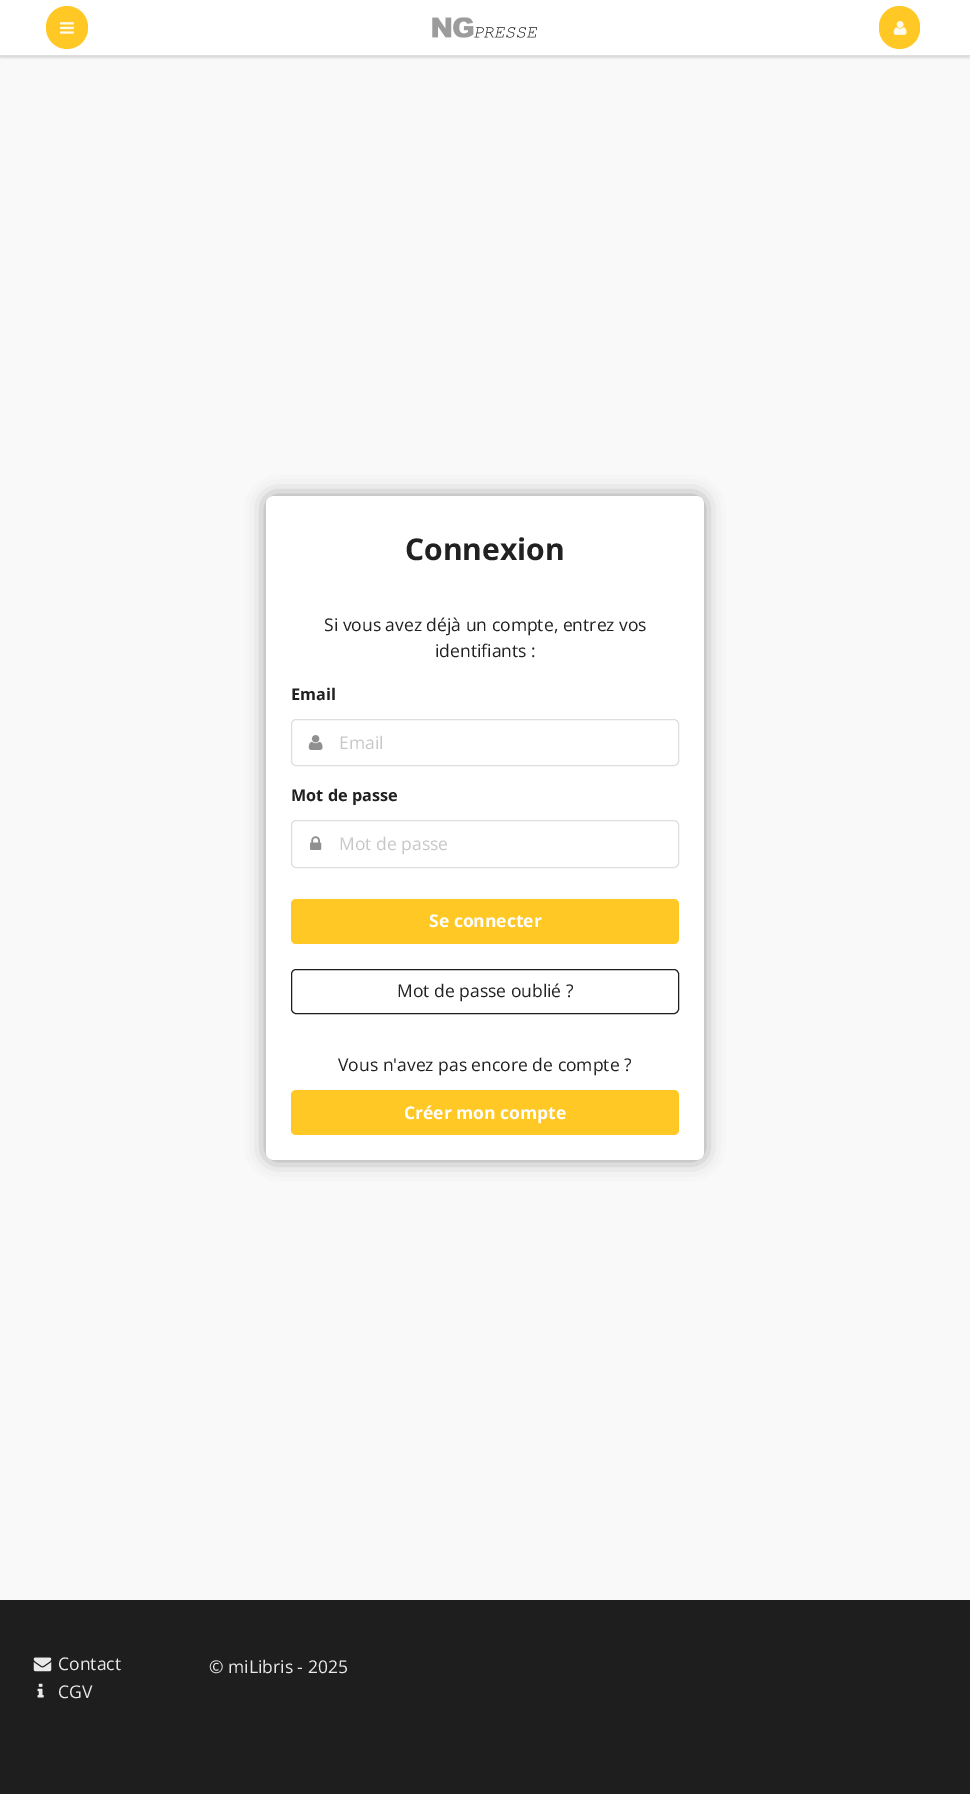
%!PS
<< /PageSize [970 1794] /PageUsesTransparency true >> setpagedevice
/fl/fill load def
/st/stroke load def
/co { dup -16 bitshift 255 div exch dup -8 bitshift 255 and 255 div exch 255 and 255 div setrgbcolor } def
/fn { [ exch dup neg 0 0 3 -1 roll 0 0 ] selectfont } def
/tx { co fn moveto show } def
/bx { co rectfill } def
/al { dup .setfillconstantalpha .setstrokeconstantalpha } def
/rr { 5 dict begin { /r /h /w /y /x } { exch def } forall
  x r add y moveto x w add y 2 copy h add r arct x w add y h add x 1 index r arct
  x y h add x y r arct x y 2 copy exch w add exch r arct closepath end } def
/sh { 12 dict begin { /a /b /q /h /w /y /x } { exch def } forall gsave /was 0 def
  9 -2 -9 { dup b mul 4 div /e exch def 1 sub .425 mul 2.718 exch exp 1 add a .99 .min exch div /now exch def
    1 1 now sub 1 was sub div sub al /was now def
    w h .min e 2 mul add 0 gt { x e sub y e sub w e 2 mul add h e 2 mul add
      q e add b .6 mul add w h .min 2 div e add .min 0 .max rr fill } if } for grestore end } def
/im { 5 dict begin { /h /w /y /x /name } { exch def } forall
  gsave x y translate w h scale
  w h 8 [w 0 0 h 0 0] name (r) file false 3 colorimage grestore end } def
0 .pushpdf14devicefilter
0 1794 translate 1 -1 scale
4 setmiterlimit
0 0 970 1794 16#F9F9F9 bx
16#222426 co
0 1 970 57 0 1 .15 sh
0 0 970 55 16#FFFFFF bx
0 55 970 1 16#DEDEDE bx
16#FFC824 co
46 6 42 43 21 rr fl
(media/1.raw) 60 22 14 12 im
(media/2.raw) 432 17 105 21 im
879 6 41 43 20.5 rr fl
(media/3.raw) 893 21 14 14 im
16#000000 co
266 496 438 664 8 9.5 .38 sh
16#FFFFFF co
266 496 438 664 8 rr fl
16#DEDEDE co
291.5 719.5 387 46 4.5 rr st
(media/4.raw) 308 735 15 15 im
291.5 820.5 387 47 4.5 rr st
(media/5.raw) 310 836 12 14 im
16#FFC824 co
291 899 388 45 5 rr fl
16#1E1E1E co
291.5 969.5 387 44 4.5 rr st
16#FFC824 co
291 1090 388 45 5 rr fl
0 1600 970 194 16#1E1E1E bx
(media/6.raw) 33 1657 19 15 im
(media/7.raw) 37 1683 7 15 im
(Connexion) 405 560 /OpenSans-Bold 30 16#212121 tx
(Si vous avez déjà un compte, entrez vos) 324 631 /OpenSans-Regular 17.5 16#212121 tx
(identifiants :) 435 657 /OpenSans-Regular 17.5 16#212121 tx
(Email) 291 700 /OpenSans-Bold 16.25 16#212121 tx
(Email) 339 749 /OpenSans-Regular 17.5 16#C7C7C7 tx
(Mot de passe) 291 801 /OpenSans-Bold 16.25 16#212121 tx
(Mot de passe) 339 850 /OpenSans-Regular 17.5 16#C7C7C7 tx
(Se connecter) 429 927 /OpenSans-Bold 17.5 16#FFFFFF tx
(Mot de passe oublié ?) 397 997 /OpenSans-Regular 17.5 16#212121 tx
(Vous n'avez pas encore de compte ?) 338 1071 /OpenSans-Regular 17.5 16#212121 tx
(Créer mon compte) 404 1119 /OpenSans-Bold 17.5 16#FFFFFF tx
(Contact) 58 1670 /OpenSans-Regular 17.5 16#E9E9E9 tx
(CGV) 58 1698 /OpenSans-Regular 17.5 16#E9E9E9 tx
(© miLibris - 2025) 209 1673 /OpenSans-Regular 17.5 16#E9E9E9 tx
.poppdf14devicefilter showpage
